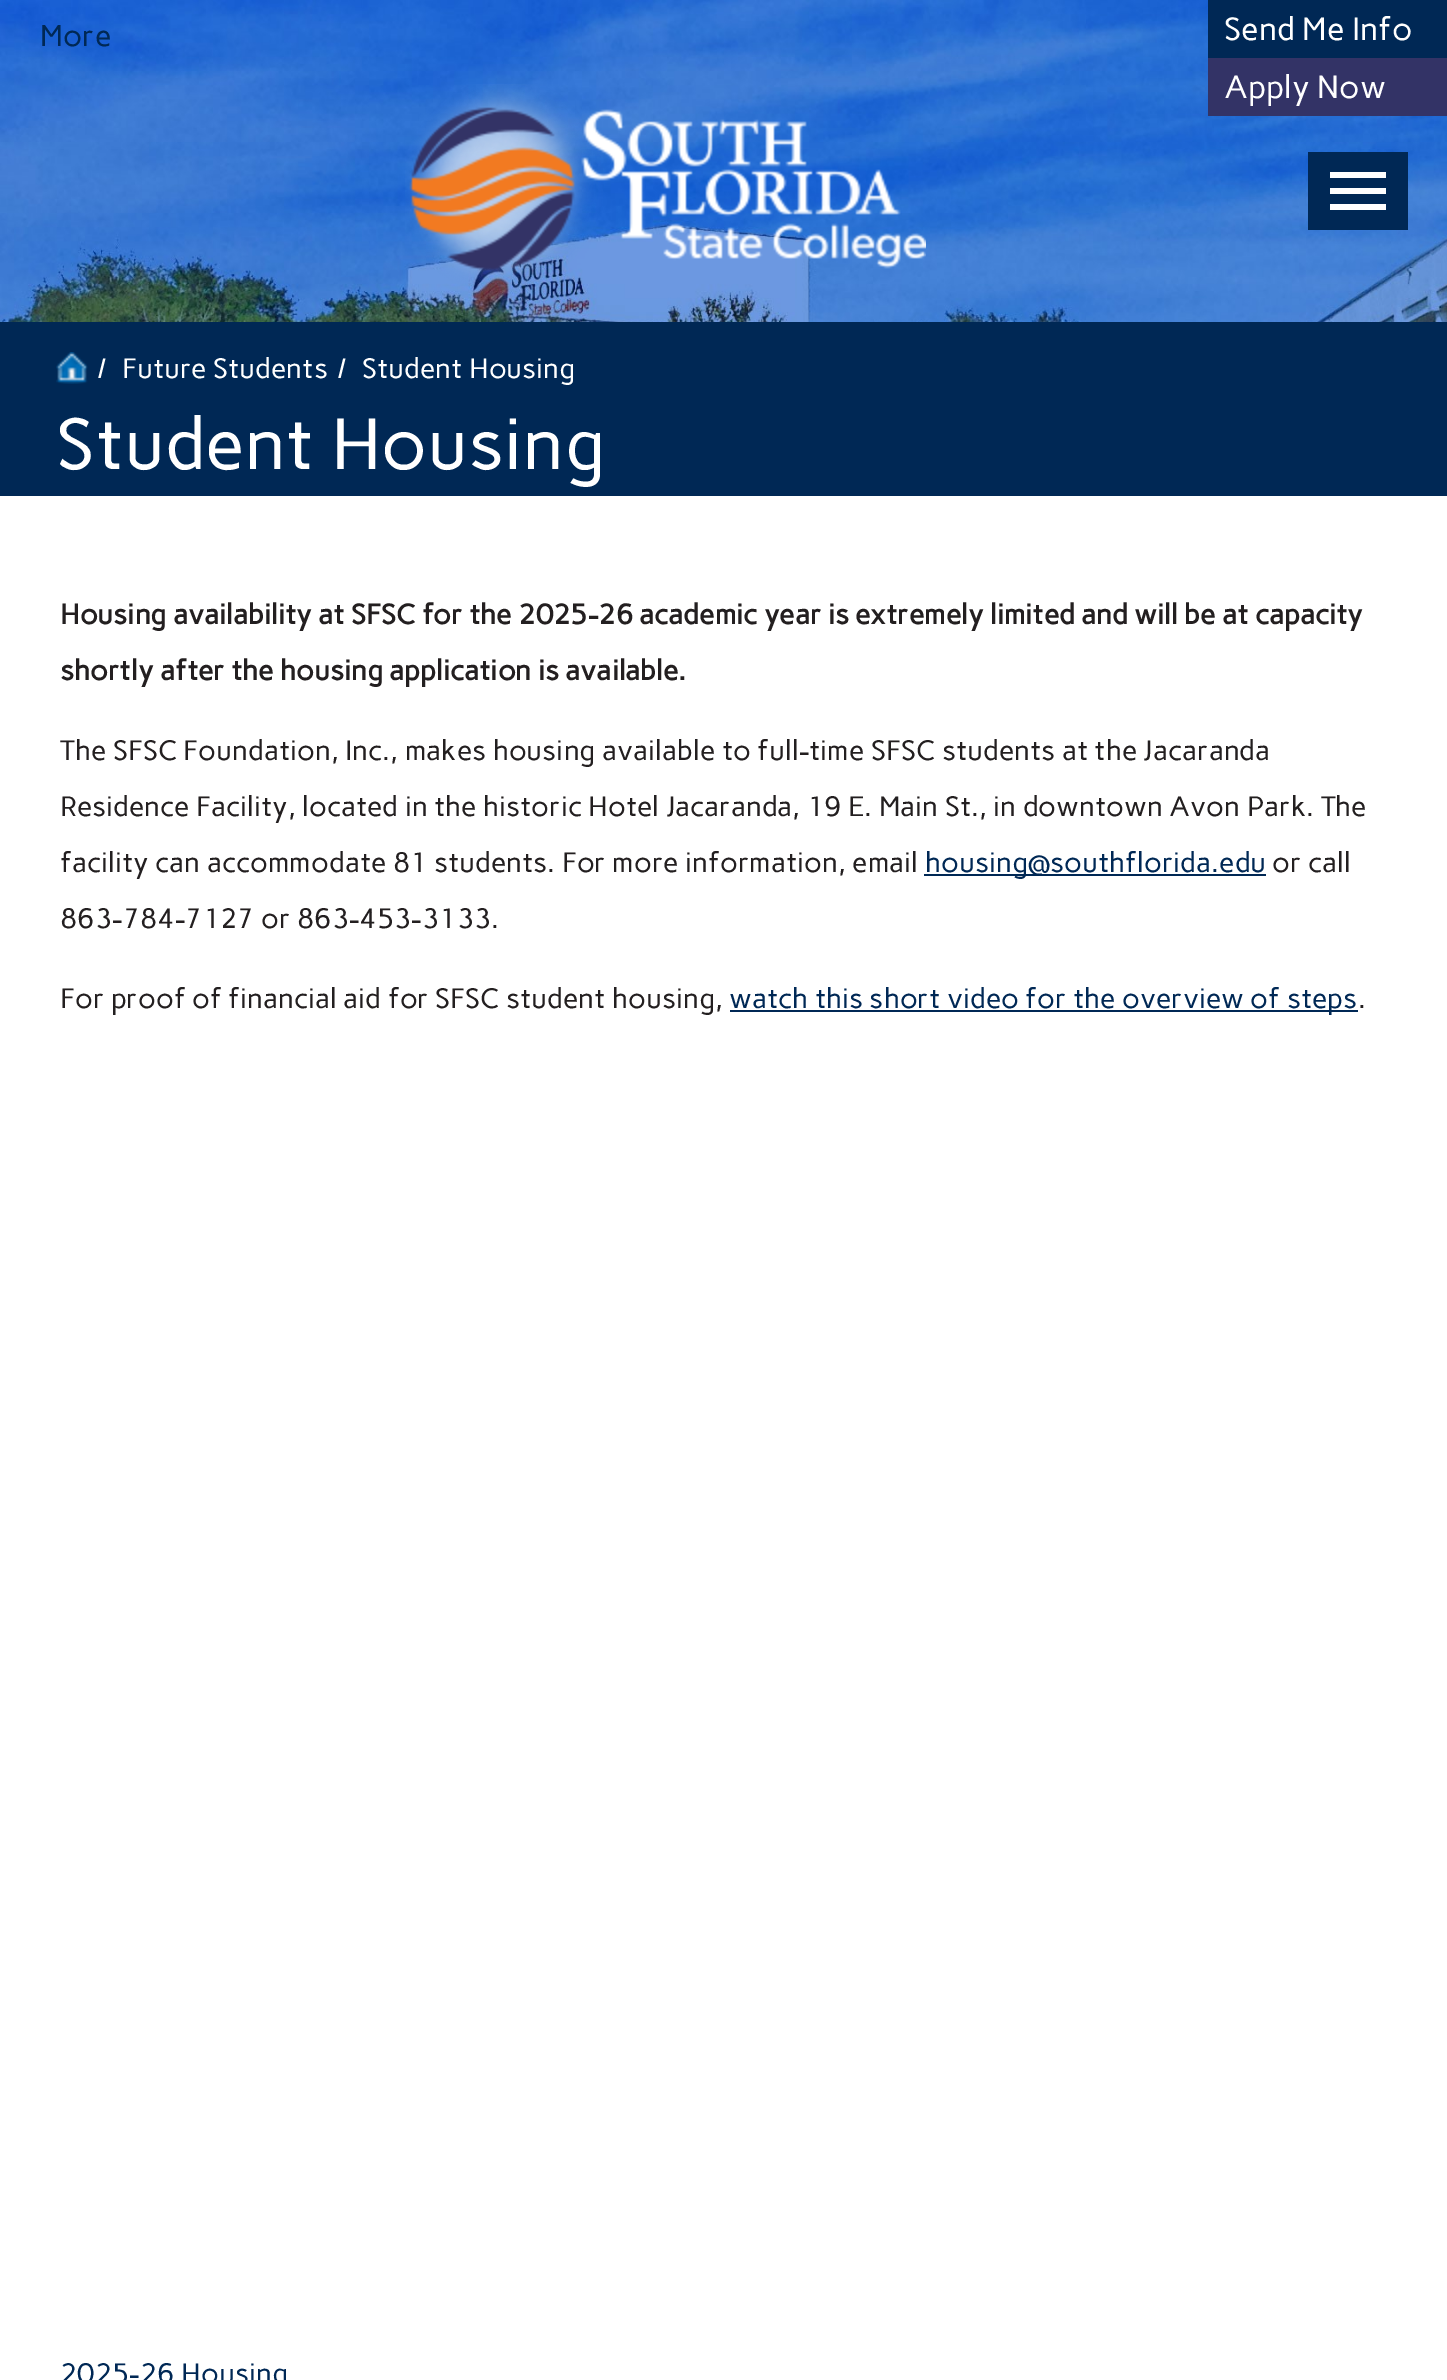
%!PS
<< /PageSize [1447 2380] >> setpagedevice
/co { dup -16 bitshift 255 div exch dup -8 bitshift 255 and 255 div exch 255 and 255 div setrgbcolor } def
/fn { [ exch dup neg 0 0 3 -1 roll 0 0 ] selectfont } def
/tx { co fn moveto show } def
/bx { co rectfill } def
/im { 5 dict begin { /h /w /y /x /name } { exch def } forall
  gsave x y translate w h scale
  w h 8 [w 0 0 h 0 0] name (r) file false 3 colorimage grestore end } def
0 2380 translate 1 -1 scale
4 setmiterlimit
0 0 1447 2380 16#FFFFFF bx
(media/1.raw) 0 0 1447 322 im
(media/2.raw) 405 84 521 202 im
1308 152 100 78 16#002855 bx
1330 172 56 6 16#FFFFFF bx
1330 188 56 6 16#FFFFFF bx
1330 204 56 6 16#FFFFFF bx
1208 0 239 58 16#002855 bx
1208 58 239 58 16#333366 bx
0 322 1447 174 16#002855 bx
(media/3.raw) 56 352 32 32 im
924 874 342 2 16#002855 bx
730 1010 628 2 16#002855 bx
(More) 40 46 /Carme-Regular 30 16#002855 tx
(Send Me Info) 1224 40 /Carme-Regular 32 16#FFFFFF tx
(Apply Now) 1224 98 /Carme-Regular 32 16#FFFFFF tx
(/) 98 378 /Carme-Regular 28 16#FFFFFF tx
(Future Students) 122 378 /Carme-Regular 28 16#FFFFFF tx
(/) 338 378 /Carme-Regular 28 16#FFFFFF tx
(Student Housing) 362 378 /Carme-Regular 28 16#FFFFFF tx
(Student Housing) 56 469 /Carme-Regular 72 16#FFFFFF tx
(Housing availability at SFSC for the 2025-26 academic year is extremely limited and will be at capacity) 60 624 /Carme-Bold 28 16#231F20 tx
(shortly after the housing application is available.) 60 680 /Carme-Bold 28 16#231F20 tx
(The SFSC Foundation, Inc., makes housing available to full-time SFSC students at the Jacaranda) 60 760 /Carme-Regular 28 16#231F20 tx
(Residence Facility, located in the historic Hotel Jacaranda, 19 E. Main St., in downtown Avon Park. The) 60 816 /Carme-Regular 28 16#231F20 tx
(facility can accommodate 81 students. For more information, email) 60 872 /Carme-Regular 28 16#231F20 tx
(housing@southflorida.edu) 925 872 /Carme-Regular 28 16#002855 tx
(or call) 1272 872 /Carme-Regular 28 16#231F20 tx
(863-784-7127 or 863-453-3133.) 60 928 /Carme-Regular 28 16#231F20 tx
(For proof of financial aid for SFSC student housing,) 60 1008 /Carme-Regular 28 16#231F20 tx
(watch this short video for the overview of steps) 729 1008 /Carme-Regular 28 16#002855 tx
(.) 1358 1008 /Carme-Regular 28 16#231F20 tx
(2025-26 Housing) 60 2383 /Carme-Regular 28 16#002855 tx
showpage
